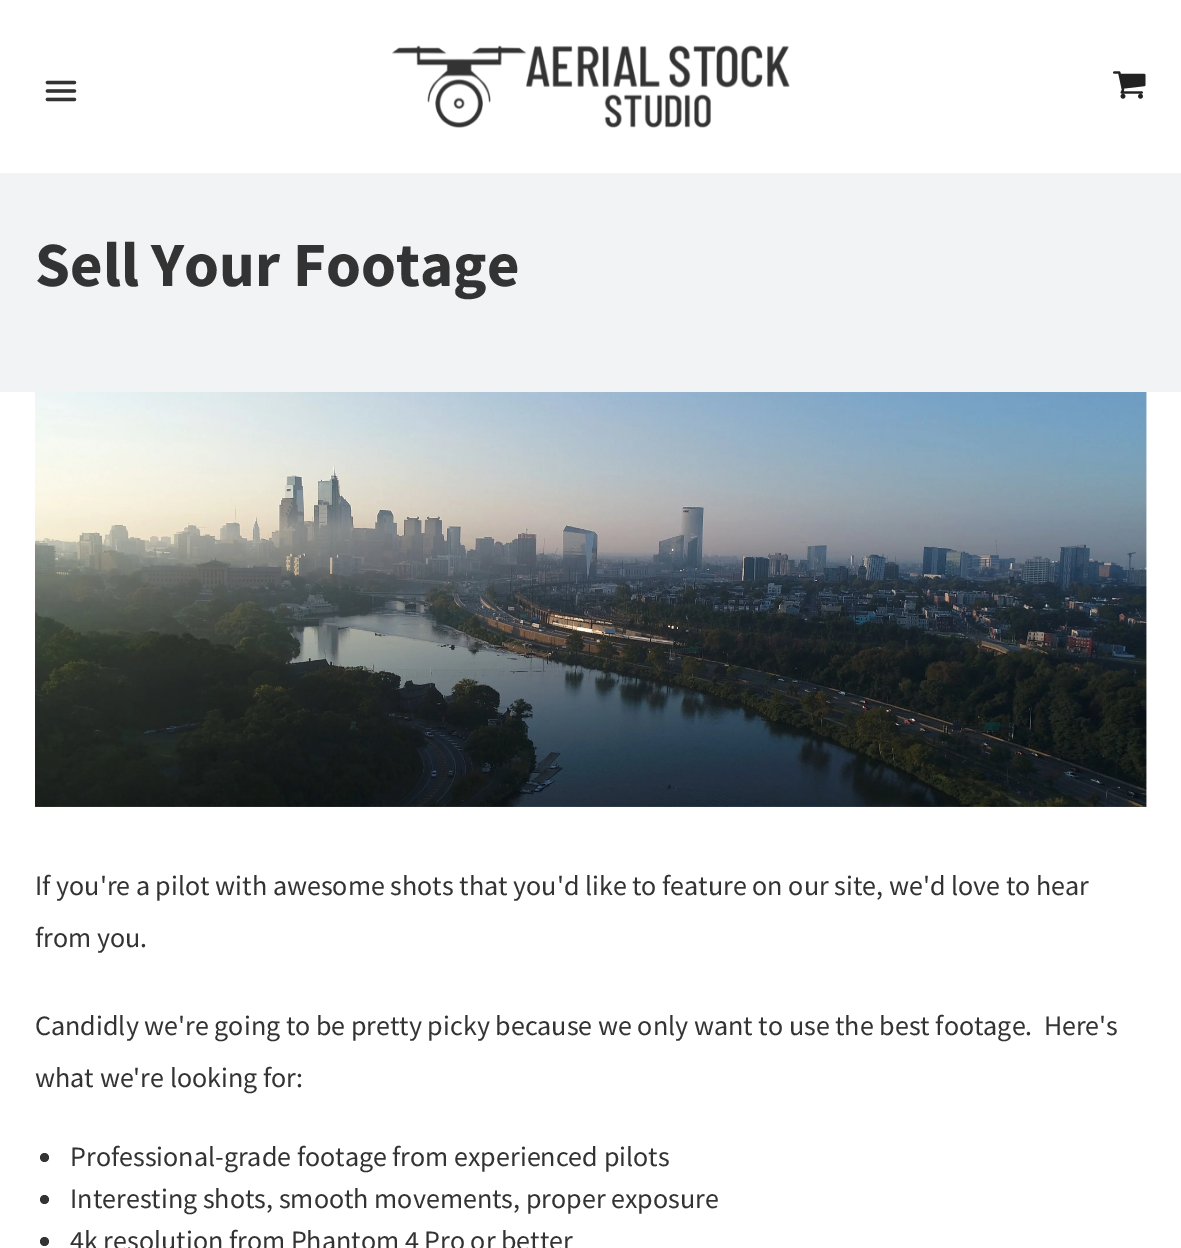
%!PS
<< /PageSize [1181 1248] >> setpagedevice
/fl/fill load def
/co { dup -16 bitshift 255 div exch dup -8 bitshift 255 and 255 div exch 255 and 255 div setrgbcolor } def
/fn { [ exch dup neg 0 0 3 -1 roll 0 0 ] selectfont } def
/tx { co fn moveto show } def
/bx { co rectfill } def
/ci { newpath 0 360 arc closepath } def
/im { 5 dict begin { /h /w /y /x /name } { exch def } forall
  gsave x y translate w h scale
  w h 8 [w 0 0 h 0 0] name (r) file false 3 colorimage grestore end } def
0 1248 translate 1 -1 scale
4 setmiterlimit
0 0 1181 1248 16#FFFFFF bx
(media/1.raw) 45 80 32 22 im
(media/2.raw) 392 45 398 83 im
(media/3.raw) 1113 71 33 28 im
0 173 1181 219 16#F2F3F5 bx
(media/4.raw) 35 392 1112 415 im
16#333333 co
44.5 1157.5 4.5 ci fl
44.5 1199.5 4.5 ci fl
44.5 1241.5 4.5 ci fl
(Sell Your Footage) 35 286 /SourceSansPro-Bold 63 16#333333 tx
(If you're a pilot with awesome shots that you'd like to feature on our site, we'd love to hear) 35 895 /SourceSansPro-Regular 28 16#333333 tx
(from you.) 35 947 /SourceSansPro-Regular 28 16#333333 tx
(Candidly we're going to be pretty picky because we only want to use the best footage.  Here's) 35 1035 /SourceSansPro-Regular 28 16#333333 tx
(what we're looking for:) 35 1087 /SourceSansPro-Regular 28 16#333333 tx
(Professional-grade footage from experienced pilots) 70 1166 /SourceSansPro-Regular 28 16#333333 tx
(Interesting shots, smooth movements, proper exposure) 70 1208 /SourceSansPro-Regular 28 16#333333 tx
(4k resolution from Phantom 4 Pro or better) 70 1250 /SourceSansPro-Regular 28 16#333333 tx
showpage
